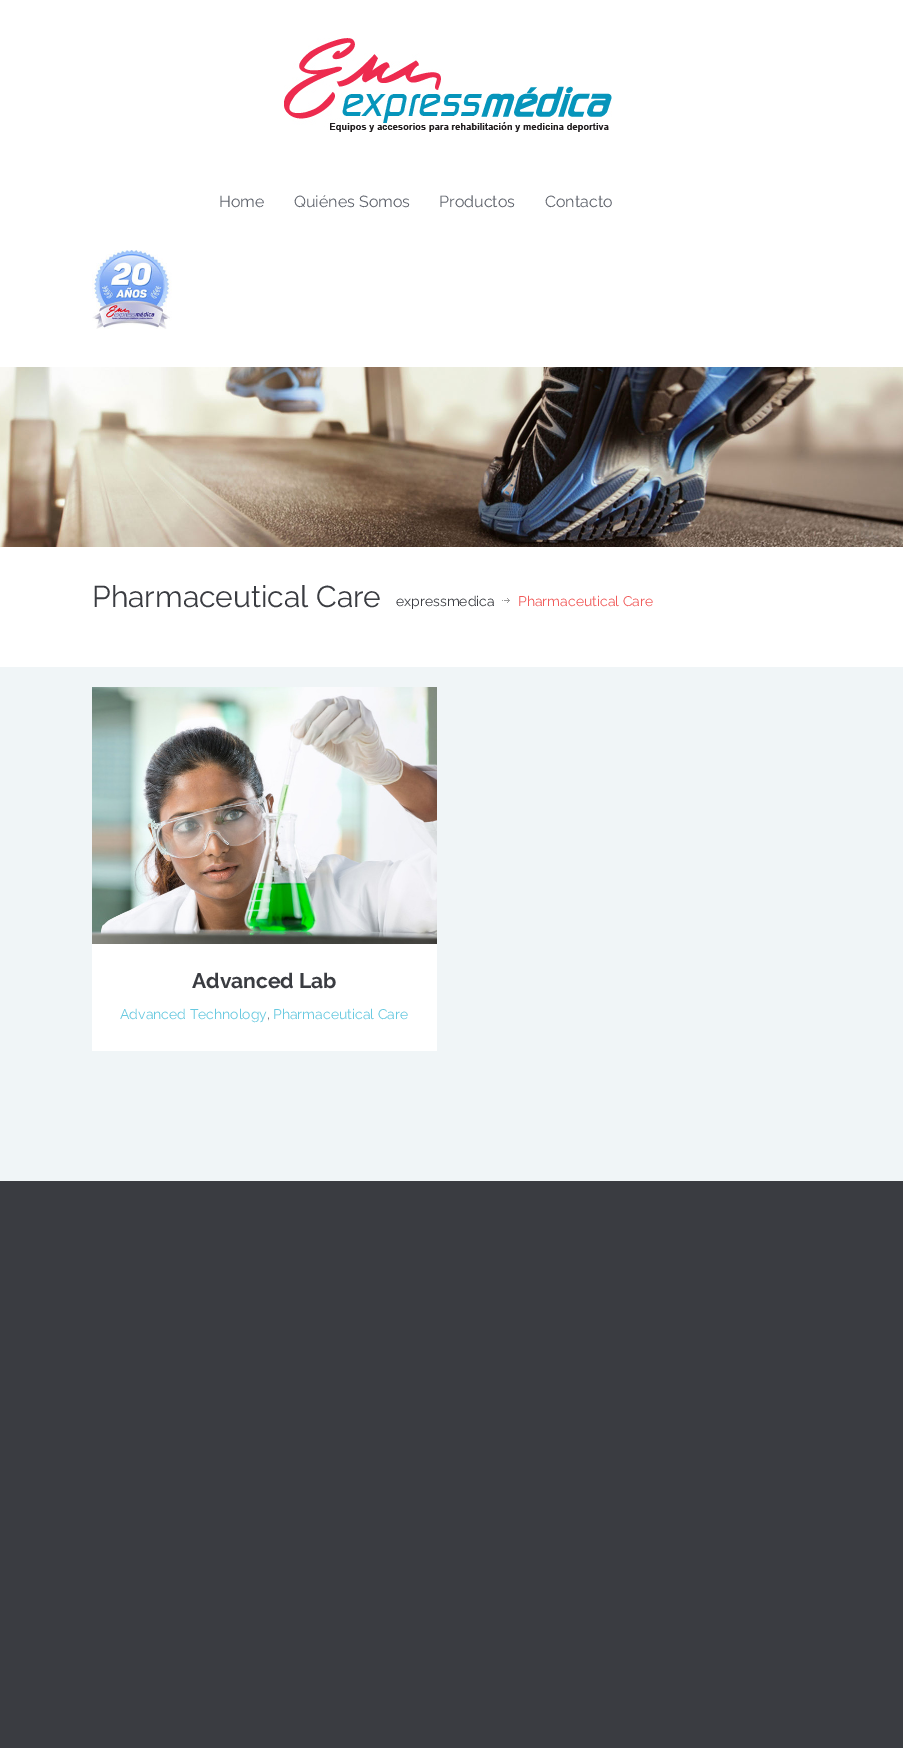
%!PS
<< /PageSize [903 1748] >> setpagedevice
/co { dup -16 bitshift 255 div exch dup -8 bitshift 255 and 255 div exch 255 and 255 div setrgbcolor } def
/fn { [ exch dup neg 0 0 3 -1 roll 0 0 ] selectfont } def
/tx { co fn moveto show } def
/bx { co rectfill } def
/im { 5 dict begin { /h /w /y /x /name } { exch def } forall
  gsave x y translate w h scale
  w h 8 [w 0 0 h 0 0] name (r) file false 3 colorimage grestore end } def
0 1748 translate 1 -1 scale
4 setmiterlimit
0 0 903 1748 16#F0F5F7 bx
0 0 903 367 16#FFFFFF bx
(media/1.raw) 284 38 328 94 im
(media/2.raw) 92 250 80 79 im
(media/3.raw) 0 367 903 180 im
0 547 903 120 16#FFFFFF bx
(media/4.raw) 502 598 8 5 im
92 944 345 107 16#FFFFFF bx
(media/5.raw) 92 687 345 257 im
0 1181 903 567 16#3A3C41 bx
(Home) 219 207 /Raleway-Regular 16 16#60646D tx
(Quiénes Somos) 294 207 /Raleway-Regular 16 16#60646D tx
(Productos) 439 207 /Raleway-Regular 16 16#60646D tx
(Contacto) 545 207 /Raleway-Regular 16 16#60646D tx
(Pharmaceutical Care) 92 607 /Raleway-Regular 30 16#3A3C41 tx
(expressmedica) 396 606 /Raleway-Regular 14 16#3A3C41 tx
(Pharmaceutical Care) 518 606 /Raleway-Regular 14 16#F15B5A tx
(Advanced Lab) 192 988 /Raleway-Bold 21 16#3A3C41 tx
(Advanced Technology) 120 1019 /Raleway-Regular 14 16#67C9E0 tx
(,) 267 1019 /Raleway-Regular 14 16#7B7D85 tx
(Pharmaceutical Care) 273 1019 /Raleway-Regular 14 16#67C9E0 tx
showpage
